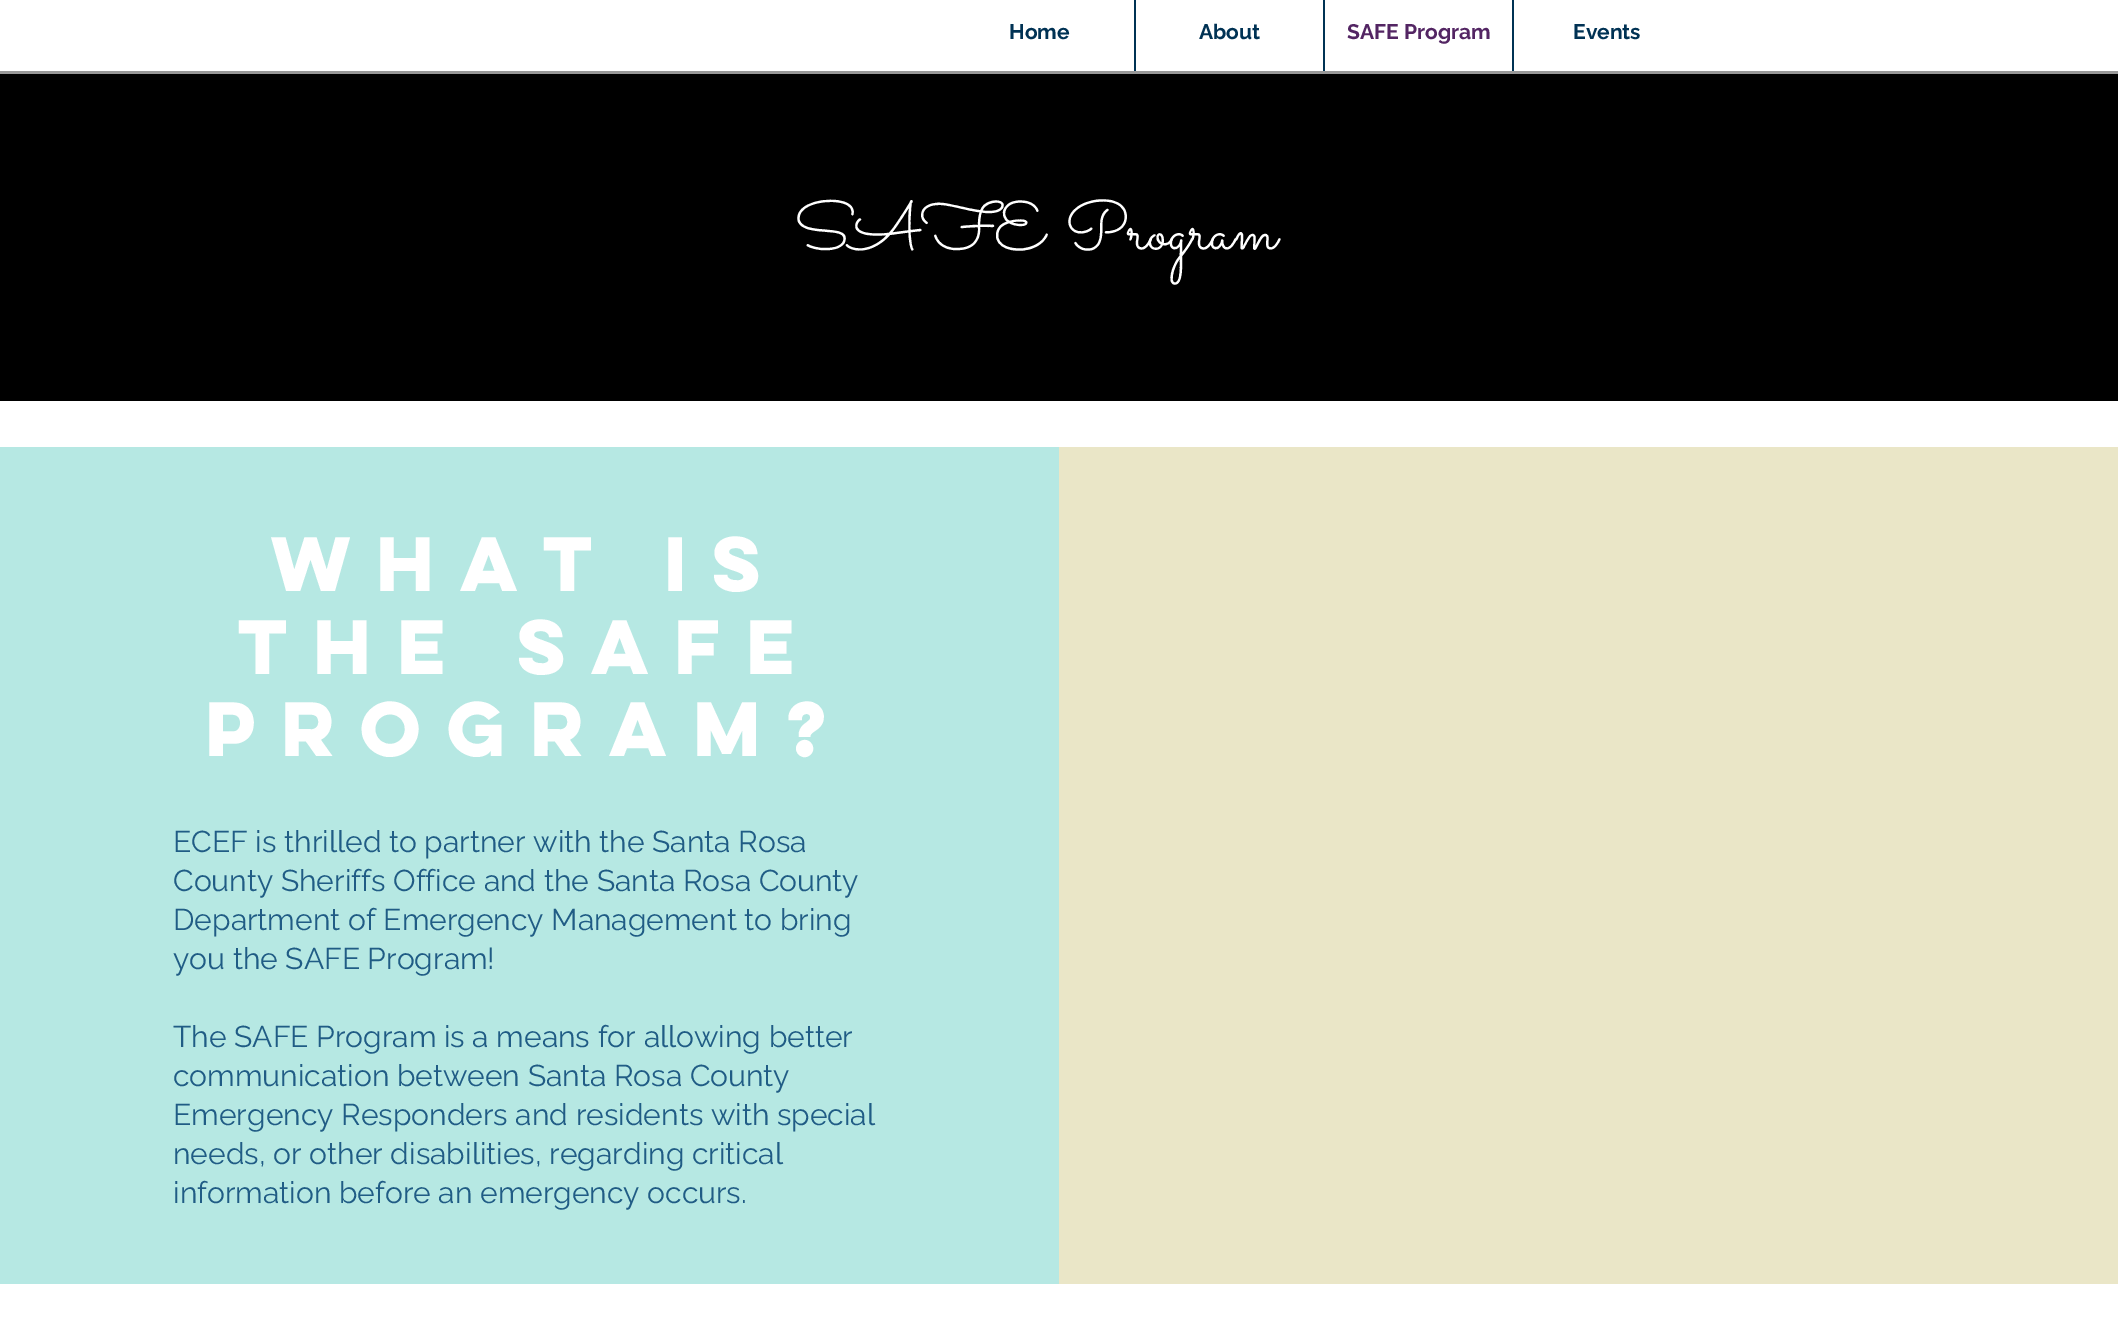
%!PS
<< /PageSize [2118 1332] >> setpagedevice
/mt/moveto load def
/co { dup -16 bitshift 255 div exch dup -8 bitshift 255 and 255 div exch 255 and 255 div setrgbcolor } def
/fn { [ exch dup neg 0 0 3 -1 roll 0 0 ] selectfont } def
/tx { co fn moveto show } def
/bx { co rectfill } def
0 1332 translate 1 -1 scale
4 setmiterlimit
0 0 2118 1332 16#FFFFFF bx
1134 0 2 71 16#003254 bx
1323 0 2 71 16#003254 bx
1512 0 2 71 16#003254 bx
0 74 2118 327 16#000000 bx
0 71 2118 3 16#999999 bx
0 447 1059 837 16#B6E8E3 bx
1059 447 1059 837 16#EAE6C7 bx
(Home) 1009 39 /Raleway-Bold 21 16#003254 tx
(About) 1199 39 /Raleway-Bold 21 16#003254 tx
(SAFE Program) 1347 39 /Raleway-Bold 21 16#532563 tx
(Events) 1573 39 /Raleway-Bold 21 16#003254 tx
(SAFE Program) 794 249 /Sacramento-Regular 67.5 16#FFFFFF tx
/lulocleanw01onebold-Bold 69 fn
271 591 mt 10.25 0 (What is) ashow
238 674 mt 10.25 0 (the safe) ashow
205 756 mt 10.25 0 (program?) ashow
(ECEF is thrilled to partner with the Santa Rosa) 173 852 /Raleway-Regular 30 16#205C85 tx
(County Sheriffs Office and the Santa Rosa County) 173 891 /Raleway-Regular 30 16#205C85 tx
(Department of Emergency Management to bring) 173 930 /Raleway-Regular 30 16#205C85 tx
(you the SAFE Program!) 173 969 /Raleway-Regular 30 16#205C85 tx
(The SAFE Program is a means for allowing better) 173 1047 /Raleway-Regular 30 16#205C85 tx
(communication between Santa Rosa County) 173 1086 /Raleway-Regular 30 16#205C85 tx
(Emergency Responders and residents with special) 173 1125 /Raleway-Regular 30 16#205C85 tx
(needs, or other disabilities, regarding critical) 173 1164 /Raleway-Regular 30 16#205C85 tx
(information before an emergency occurs.) 173 1203 /Raleway-Regular 30 16#205C85 tx
showpage
